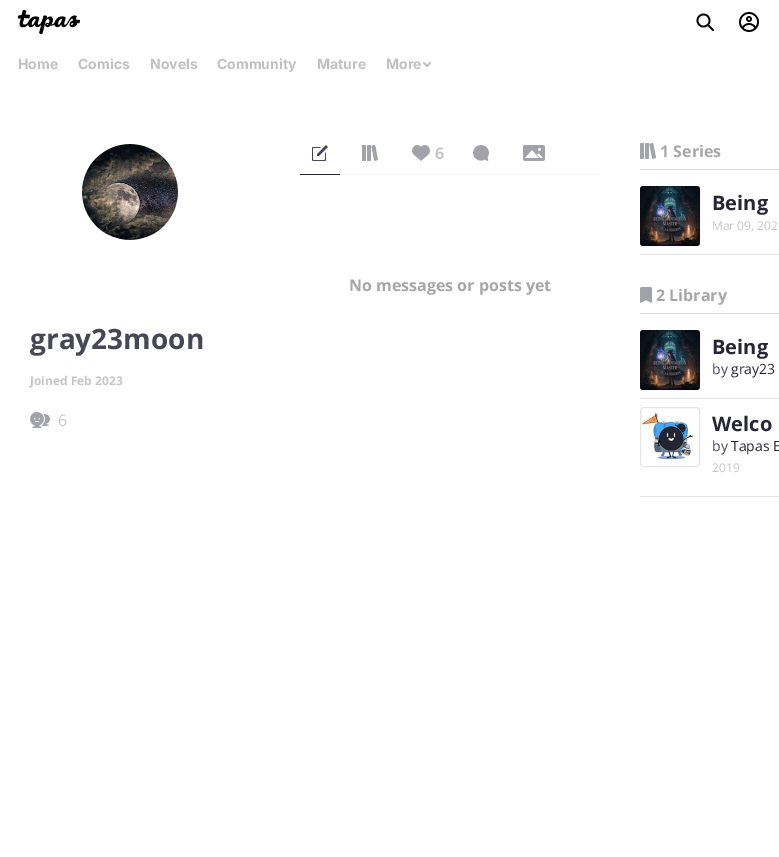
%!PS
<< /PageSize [779 857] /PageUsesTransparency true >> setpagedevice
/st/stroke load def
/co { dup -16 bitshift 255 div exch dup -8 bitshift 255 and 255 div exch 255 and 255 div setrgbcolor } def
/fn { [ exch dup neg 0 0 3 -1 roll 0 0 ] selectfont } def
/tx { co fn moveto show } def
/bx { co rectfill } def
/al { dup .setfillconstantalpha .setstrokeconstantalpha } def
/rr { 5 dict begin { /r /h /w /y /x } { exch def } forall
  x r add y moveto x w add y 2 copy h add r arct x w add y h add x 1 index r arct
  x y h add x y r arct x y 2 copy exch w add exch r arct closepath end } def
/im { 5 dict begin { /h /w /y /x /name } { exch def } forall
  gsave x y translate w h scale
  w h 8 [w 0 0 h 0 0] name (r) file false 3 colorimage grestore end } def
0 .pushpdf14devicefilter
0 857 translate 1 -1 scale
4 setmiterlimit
0 0 779 857 16#FFFFFF bx
(media/1.raw) 18 10 62 24 im
(media/2.raw) 696 13 18 18 im
(media/3.raw) 739 12 20 20 im
(media/4.raw) 423 62 8 5 im
(media/5.raw) 82 144 96 96 im
(media/6.raw) 30 412 20 16 im
340 174 260 1 16#F6F6F6 bx
300 174 40 1 16#262636 bx
(media/7.raw) 312 145 16 16 im
(media/8.raw) 362 145 16 16 im
(media/9.raw) 412 145 18 16 im
(media/10.raw) 473 145 16 16 im
(media/11.raw) 523 145 22 16 im
640 169 139 1 16#D6D6D6 bx
(media/12.raw) 640 143 16 16 im
640 254 139 1 16#E6E6E6 bx
(media/13.raw) 640 186 60 60 im
0.1 al
16#060616 co
640.5 186.5 59 59 3.5 rr st
1 al
640 313 139 1 16#D6D6D6 bx
(media/14.raw) 640 287 12 16 im
640 398 139 1 16#E6E6E6 bx
(media/13.raw) 640 330 60 60 im
0.1 al
16#060616 co
640.5 330.5 59 59 3.5 rr st
1 al
640 496 139 1 16#E6E6E6 bx
(media/15.raw) 641 412 53 48 im
16#E6E6E8 co
640.5 407.5 59 59 3.5 rr st
(Home) 18 69 /Inter-Bold 14 16#C0C0C0 tx
(Comics) 78 69 /Inter-Bold 14 16#C0C0C0 tx
(Novels) 150 69 /Inter-Bold 14 16#C0C0C0 tx
(Community) 217 69 /Inter-Bold 14 16#C0C0C0 tx
(Mature) 317 69 /Inter-Bold 14 16#C0C0C0 tx
(More) 386 69 /Inter-Bold 14 16#C0C0C0 tx
(gray23moon) 30 349 /OpenSans-Bold 28 16#464656 tx
(Joined Feb 2023) 30 385 /OpenSans-Bold 12 16#C6C6C6 tx
(6) 58 426 /OpenSans-Regular 16 16#C6C6C6 tx
(6) 435 159 /OpenSans-Bold 16 16#C6C6C6 tx
(1 Series) 660 157 /OpenSans-Bold 16 16#A6A6A6 tx
(Being) 712 210 /OpenSans-Bold 20 16#262636 tx
(Mar 09, 202) 712 230 /OpenSans-Regular 12 16#C6C6C6 tx
(2 Library) 656 301 /OpenSans-Bold 16 16#A6A6A6 tx
(Being) 712 354 /OpenSans-Bold 20 16#262636 tx
(by) 712 374 /OpenSans-Regular 14 16#464656 tx
(gray23) 731 374 /OpenSans-Regular 14 16#262636 tx
(Welco) 712 431 /OpenSans-Bold 20 16#262636 tx
(by) 712 451 /OpenSans-Regular 14 16#464656 tx
(Tapas E) 731 451 /OpenSans-Regular 14 16#262636 tx
(2019) 712 472 /OpenSans-Regular 12 16#C6C6C6 tx
(No messages or posts yet) 349 291 /OpenSans-Bold 16 16#A6A6A6 tx
.poppdf14devicefilter showpage
